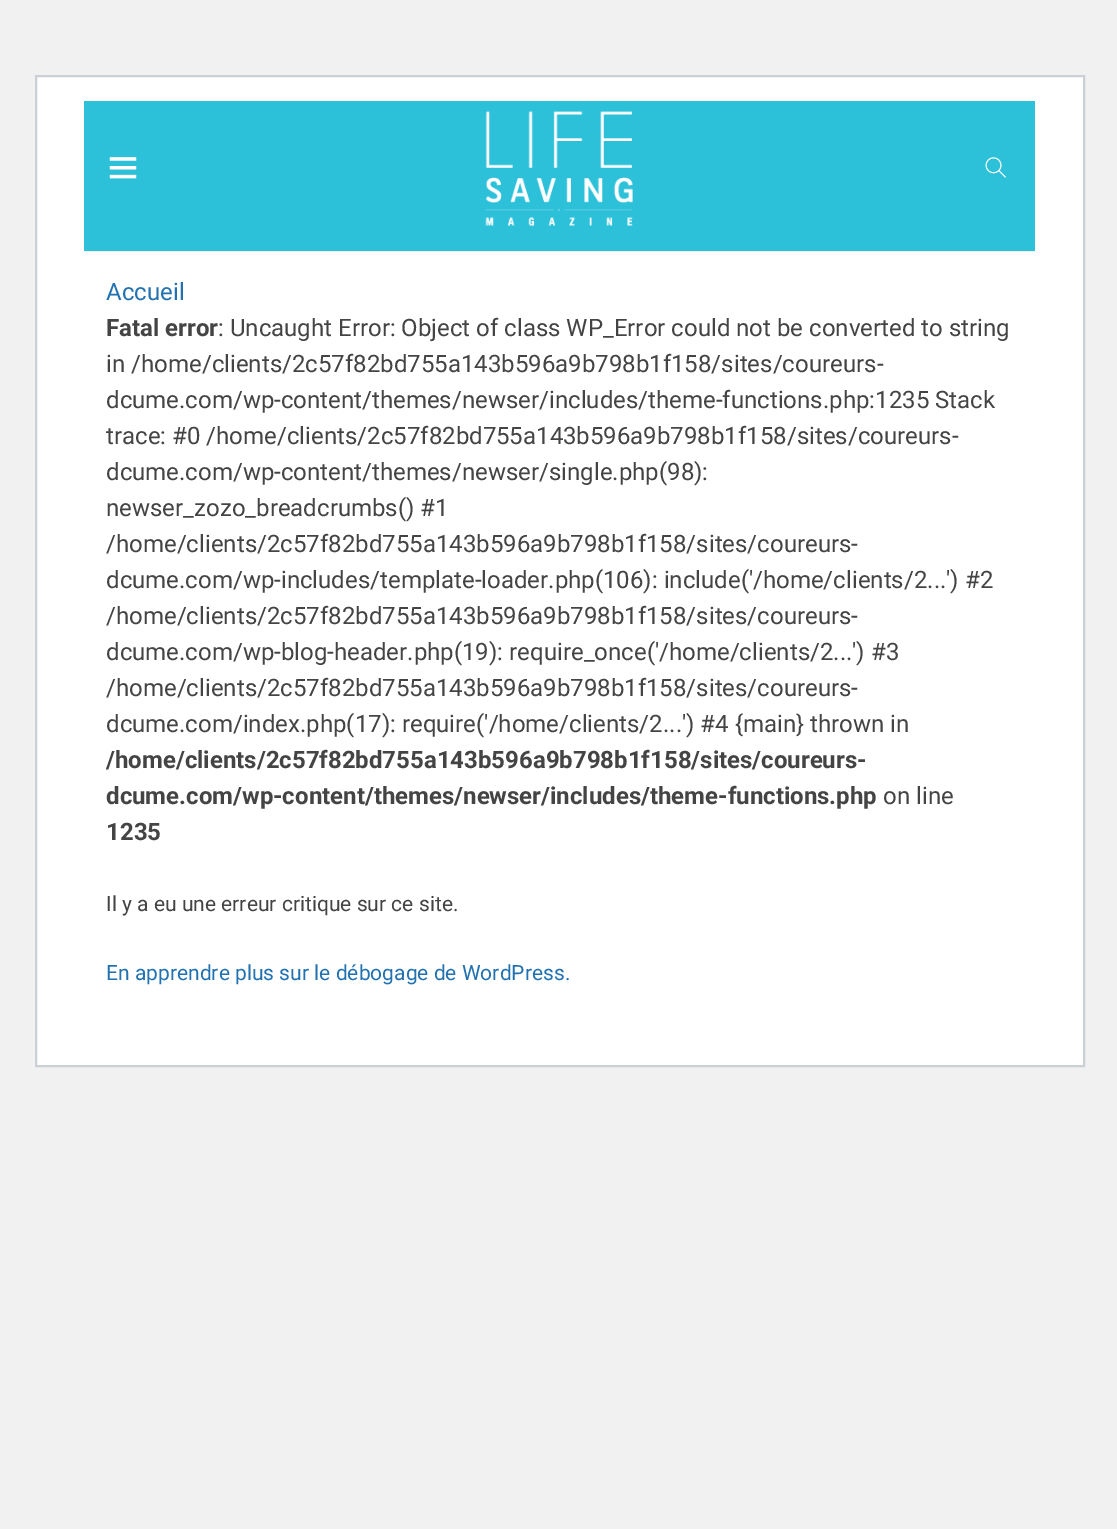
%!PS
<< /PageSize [1117 1529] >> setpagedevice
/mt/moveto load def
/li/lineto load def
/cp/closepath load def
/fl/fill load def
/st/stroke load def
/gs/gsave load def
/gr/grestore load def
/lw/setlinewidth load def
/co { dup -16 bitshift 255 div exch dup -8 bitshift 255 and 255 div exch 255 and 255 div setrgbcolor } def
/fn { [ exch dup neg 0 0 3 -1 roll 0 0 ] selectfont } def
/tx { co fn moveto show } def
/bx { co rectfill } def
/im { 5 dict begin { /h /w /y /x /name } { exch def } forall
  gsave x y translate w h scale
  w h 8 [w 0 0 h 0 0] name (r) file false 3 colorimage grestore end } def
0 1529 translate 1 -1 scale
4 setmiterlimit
0 0 1117 1529 16#F1F1F1 bx
16#FFFFFF co
36 76 mt 1084 76 li 1084 1066 li 36 1066 li cp gs fl gr
16#CCD0D4 co
2 lw
st
84 101 951 150 16#2CC0D9 bx
84 251 951 1 16#EEEEEE bx
(media/1.raw) 109 157 28 22 im
(media/2.raw) 485 111 148 115 im
(media/3.raw) 985 157 21 21 im
(Accueil) 106 300 /Roboto-Regular 24 16#2271B1 tx
(Fatal error) 106 336 /Roboto-Bold 24 16#444444 tx
(: Uncaught Error: Object of class WP_Error could not be converted to string) 218 336 /Roboto-Regular 24 16#444444 tx
(in /home/clients/2c57f82bd755a143b596a9b798b1f158/sites/coureurs-) 106 372 /Roboto-Regular 24 16#444444 tx
(dcume.com/wp-content/themes/newser/includes/theme-functions.php:1235 Stack) 106 408 /Roboto-Regular 24 16#444444 tx
(trace: #0 /home/clients/2c57f82bd755a143b596a9b798b1f158/sites/coureurs-) 106 444 /Roboto-Regular 24 16#444444 tx
(dcume.com/wp-content/themes/newser/single.php\(98\):) 106 480 /Roboto-Regular 24 16#444444 tx
(newser_zozo_breadcrumbs\(\) #1) 106 516 /Roboto-Regular 24 16#444444 tx
(/home/clients/2c57f82bd755a143b596a9b798b1f158/sites/coureurs-) 106 552 /Roboto-Regular 24 16#444444 tx
(dcume.com/wp-includes/template-loader.php\(106\): include\('/home/clients/2...'\) #2) 106 588 /Roboto-Regular 24 16#444444 tx
(/home/clients/2c57f82bd755a143b596a9b798b1f158/sites/coureurs-) 106 624 /Roboto-Regular 24 16#444444 tx
(dcume.com/wp-blog-header.php\(19\): require_once\('/home/clients/2...'\) #3) 106 660 /Roboto-Regular 24 16#444444 tx
(/home/clients/2c57f82bd755a143b596a9b798b1f158/sites/coureurs-) 106 696 /Roboto-Regular 24 16#444444 tx
(dcume.com/index.php\(17\): require\('/home/clients/2...'\) #4 {main} thrown in) 106 732 /Roboto-Regular 24 16#444444 tx
(/home/clients/2c57f82bd755a143b596a9b798b1f158/sites/coureurs-) 106 768 /Roboto-Bold 24 16#444444 tx
(dcume.com/wp-content/themes/newser/includes/theme-functions.php) 106 804 /Roboto-Bold 24 16#444444 tx
(on line) 883 804 /Roboto-Regular 24 16#444444 tx
(1235) 106 840 /Roboto-Bold 24 16#444444 tx
(Il y a eu une erreur critique sur ce site.) 106 911 /Roboto-Regular 21 16#444444 tx
(En apprendre plus sur le débogage de WordPress.) 106 980 /Roboto-Regular 21 16#2271B1 tx
showpage
